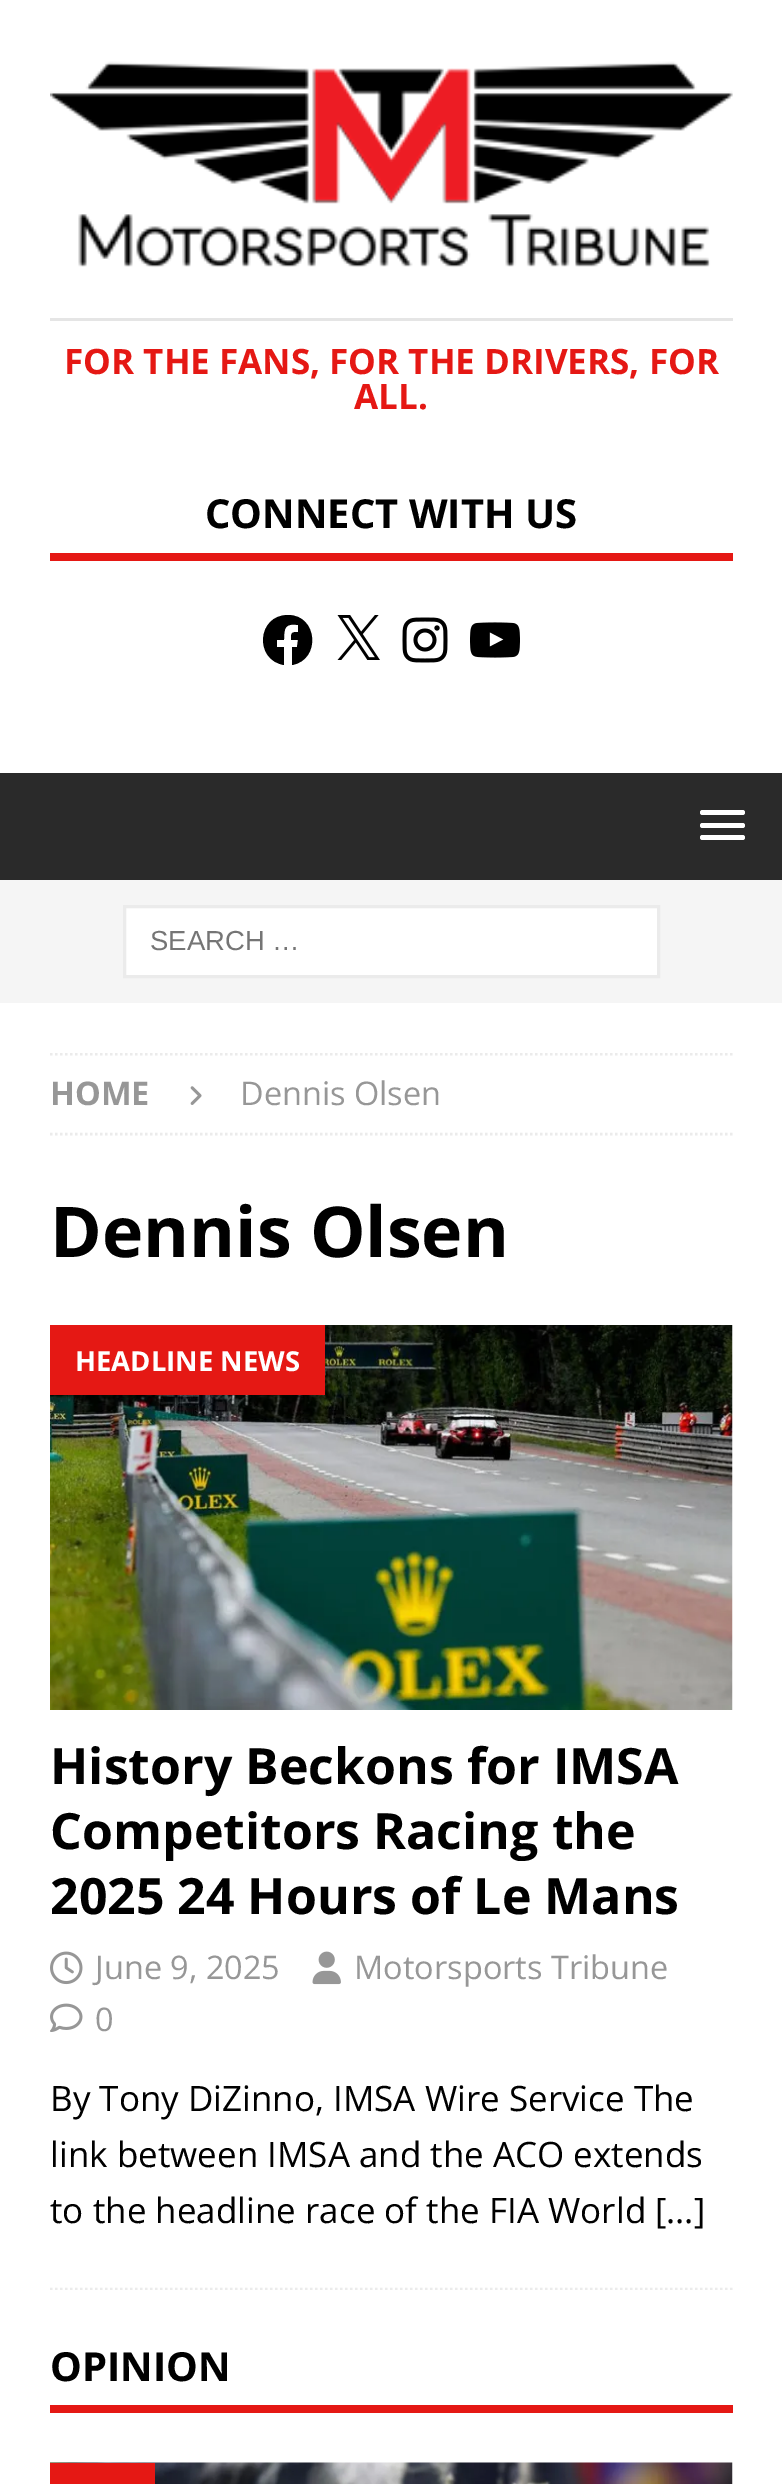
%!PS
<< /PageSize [782 2484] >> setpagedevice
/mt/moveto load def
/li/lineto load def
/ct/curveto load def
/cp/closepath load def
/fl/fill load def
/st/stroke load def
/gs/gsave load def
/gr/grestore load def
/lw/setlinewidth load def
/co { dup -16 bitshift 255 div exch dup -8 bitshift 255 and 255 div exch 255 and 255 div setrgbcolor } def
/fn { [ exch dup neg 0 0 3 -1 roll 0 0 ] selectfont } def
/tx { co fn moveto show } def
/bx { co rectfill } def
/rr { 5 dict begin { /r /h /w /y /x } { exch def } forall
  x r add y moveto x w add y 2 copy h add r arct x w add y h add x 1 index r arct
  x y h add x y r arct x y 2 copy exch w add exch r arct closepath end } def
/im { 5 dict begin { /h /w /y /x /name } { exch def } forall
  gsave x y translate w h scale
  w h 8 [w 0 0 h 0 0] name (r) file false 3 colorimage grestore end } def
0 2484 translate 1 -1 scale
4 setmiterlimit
0 0 782 2484 16#FFFFFF bx
(media/1.raw) 50 61 683 207 im
50 318 683 3 16#E5E5E5 bx
50 553 683 8 16#E51814 bx
16#000000 co
288 615 mt 257 615 254 660 284 665 ct 284 647 li 277 647 li 277 640 li 284 640 li 284 628 285 623 298 625 ct 298 632 li 291 632 291 633 291 640 ct 298 640 li 297 647 li 292 647 li 292 665 li 321 660 318 615 288 615 ct cp fl
(media/2.raw) 337 615 43 45 im
(media/3.raw) 402 617 46 46 im
(media/4.raw) 470 622 50 36 im
0 773 782 107 16#2A2A2A bx
16#FFFFFF co
700 810 45 5 2.5 rr fl
700 823 45 5 2.5 rr fl
700 835 45 5 2.5 rr fl
0 880 782 123 16#F5F5F5 bx
16#FFFFFF co
124.5 906.5 mt 658.5 906.5 li 658.5 976.5 li 124.5 976.5 li cp gs fl gr
16#EBEBEB co
3 lw
st
gs
50 1053 683 1237 rectclip
2.5 lw
[2.5 2.5] 0 setdash
50 1054 mt 732.5 1054 li st
gr
2.5 lw
[2.5 2.5] 0 setdash
50 1134 mt 732.5 1134 li st
(media/5.raw) 190 1086 12 19 im
gs
50 1053 683 1237 rectclip
50 2289 mt 732.5 2289 li st
gr
(media/6.raw) 50 1325 683 385 im
50 1325 275 70 16#E51814 bx
(media/7.raw) 50 1951 33 34 im
(media/8.raw) 312 1951 29 34 im
(media/9.raw) 50 2003 33 29 im
50 2405 683 8 16#E51814 bx
(media/10.raw) 50 2462 683 22 im
50 2463 105 21 16#E51814 bx
(FOR THE FANS, FOR THE DRIVERS, FOR) 64 374 /OpenSans-Bold 35 16#E51814 tx
(ALL.) 354 409 /OpenSans-Bold 35 16#E51814 tx
(CONNECT WITH US) 205 528 /OpenSans-Bold 40 16#000000 tx
(SEARCH …) 150 950 /LiberationSans-Regular 27.5 16#757575 tx
(HOME) 50 1105 /OpenSans-Bold 32.5 16#979797 tx
(Dennis Olsen) 240 1105 /OpenSans-Regular 32.5 16#979797 tx
(Dennis Olsen) 50 1257 /OpenSans-Bold 70 16#000000 tx
(HEADLINE NEWS) 75 1371 /OpenSans-Bold 27.5 16#FFFFFF tx
(History Beckons for IMSA) 50 1784 /OpenSans-Bold 50 16#000000 tx
(Competitors Racing the) 50 1849 /OpenSans-Bold 50 16#000000 tx
(2025 24 Hours of Le Mans) 50 1914 /OpenSans-Bold 50 16#000000 tx
(June 9, 2025) 95 1979 /OpenSans-Regular 32.5 16#979797 tx
(Motorsports Tribune) 354 1979 /OpenSans-Regular 32.5 16#979797 tx
(0) 95 2031 /OpenSans-Regular 32.5 16#979797 tx
(By Tony DiZinno, IMSA Wire Service The) 50 2111 /OpenSans-Regular 35 16#000000 tx
(link between IMSA and the ACO extends) 50 2167 /OpenSans-Regular 35 16#000000 tx
(to the headline race of the FIA World […]) 50 2223 /OpenSans-Regular 35 16#000000 tx
(OPINION) 50 2381 /OpenSans-Bold 40 16#000000 tx
showpage
